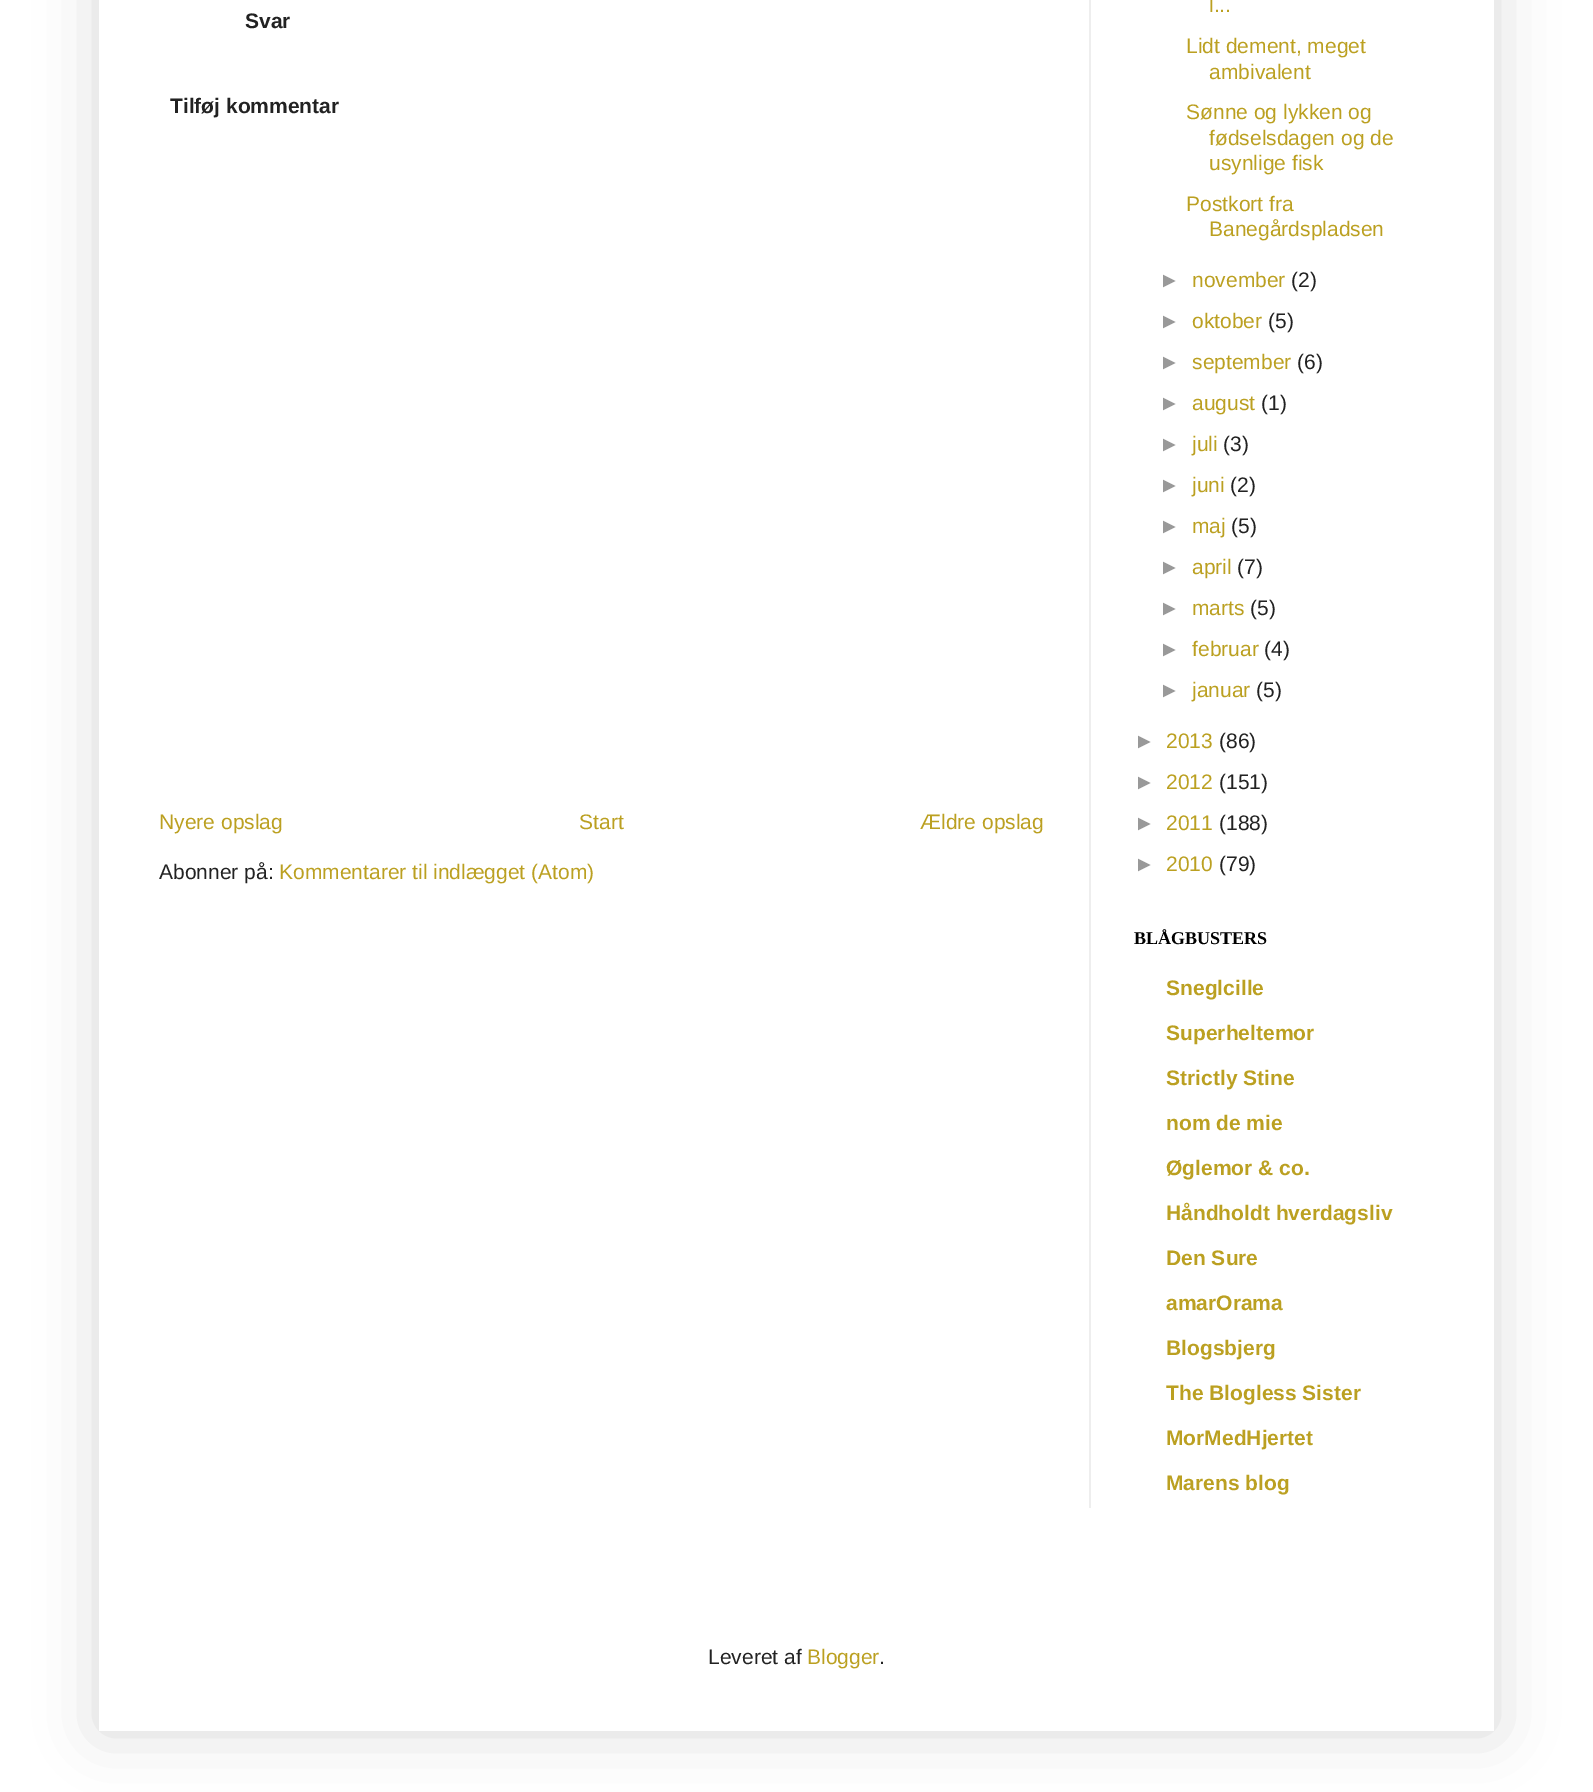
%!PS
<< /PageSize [1593 1792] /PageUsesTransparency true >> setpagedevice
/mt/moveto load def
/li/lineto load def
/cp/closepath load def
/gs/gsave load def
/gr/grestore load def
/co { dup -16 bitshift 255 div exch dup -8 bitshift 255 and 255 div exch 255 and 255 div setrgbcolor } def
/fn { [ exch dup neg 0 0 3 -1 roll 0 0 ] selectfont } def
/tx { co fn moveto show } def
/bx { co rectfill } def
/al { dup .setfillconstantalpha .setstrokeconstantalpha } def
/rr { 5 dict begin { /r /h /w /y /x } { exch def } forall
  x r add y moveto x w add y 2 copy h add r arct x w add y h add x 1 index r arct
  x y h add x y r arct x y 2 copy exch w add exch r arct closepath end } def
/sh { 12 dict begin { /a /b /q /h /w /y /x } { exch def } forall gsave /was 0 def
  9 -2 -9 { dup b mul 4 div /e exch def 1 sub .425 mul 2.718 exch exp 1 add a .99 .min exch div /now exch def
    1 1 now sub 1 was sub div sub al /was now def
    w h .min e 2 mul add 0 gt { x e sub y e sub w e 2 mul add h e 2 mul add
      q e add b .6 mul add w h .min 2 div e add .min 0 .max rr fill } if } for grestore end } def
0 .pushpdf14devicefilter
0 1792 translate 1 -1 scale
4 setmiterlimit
0 0 1593 1792 16#FFFFFF bx
gs
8 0 mt 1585 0 li 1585 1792 li 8 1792 li cp 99 -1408 mt 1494 -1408 li 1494 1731 li 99 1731 li cp eoclip newpath
16#000000 co
99 -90 1395 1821 0 30 .15 sh
gr
1089 0 2 1508 16#EEEEEE bx
(Svar) 245 28 /LiberationSans-Bold 21 16#222222 tx
(Tilføj kommentar) 170 113 /LiberationSans-Bold 21 16#222222 tx
(Nyere opslag) 159 829 /LiberationSans-Regular 21 16#BBA021 tx
(Start) 579 829 /LiberationSans-Regular 21 16#BBA021 tx
(Ældre opslag) 920 829 /LiberationSans-Regular 21 16#BBA021 tx
(Abonner på:) 159 879 /LiberationSans-Regular 21 16#222222 tx
(Kommentarer til indlægget \(Atom\)) 279 879 /LiberationSans-Regular 21 16#BBA021 tx
(l...) 1209 12 /LiberationSans-Regular 21 16#BBA021 tx
(Lidt dement, meget) 1186 53 /LiberationSans-Regular 21 16#BBA021 tx
(ambivalent) 1209 79 /LiberationSans-Regular 21 16#BBA021 tx
(Sønne og lykken og) 1186 119 /LiberationSans-Regular 21 16#BBA021 tx
(fødselsdagen og de) 1209 145 /LiberationSans-Regular 21 16#BBA021 tx
(usynlige fisk) 1209 170 /LiberationSans-Regular 21 16#BBA021 tx
(Postkort fra) 1186 211 /LiberationSans-Regular 21 16#BBA021 tx
(Banegårdspladsen) 1209 236 /LiberationSans-Regular 21 16#BBA021 tx
(►) 1159 287 /LiberationSans-Regular 21 16#999999 tx
(november) 1192 287 /LiberationSans-Regular 21 16#BBA021 tx
(\(2\)) 1291 287 /LiberationSans-Regular 21 16#222222 tx
(►) 1159 328 /LiberationSans-Regular 21 16#999999 tx
(oktober) 1192 328 /LiberationSans-Regular 21 16#BBA021 tx
(\(5\)) 1268 328 /LiberationSans-Regular 21 16#222222 tx
(►) 1159 369 /LiberationSans-Regular 21 16#999999 tx
(september) 1192 369 /LiberationSans-Regular 21 16#BBA021 tx
(\(6\)) 1297 369 /LiberationSans-Regular 21 16#222222 tx
(►) 1159 410 /LiberationSans-Regular 21 16#999999 tx
(august) 1192 410 /LiberationSans-Regular 21 16#BBA021 tx
(\(1\)) 1261 410 /LiberationSans-Regular 21 16#222222 tx
(►) 1159 451 /LiberationSans-Regular 21 16#999999 tx
(juli) 1192 451 /LiberationSans-Regular 21 16#BBA021 tx
(\(3\)) 1223 451 /LiberationSans-Regular 21 16#222222 tx
(►) 1159 492 /LiberationSans-Regular 21 16#999999 tx
(juni) 1192 492 /LiberationSans-Regular 21 16#BBA021 tx
(\(2\)) 1230 492 /LiberationSans-Regular 21 16#222222 tx
(►) 1159 533 /LiberationSans-Regular 21 16#999999 tx
(maj) 1192 533 /LiberationSans-Regular 21 16#BBA021 tx
(\(5\)) 1231 533 /LiberationSans-Regular 21 16#222222 tx
(►) 1159 574 /LiberationSans-Regular 21 16#999999 tx
(april) 1192 574 /LiberationSans-Regular 21 16#BBA021 tx
(\(7\)) 1237 574 /LiberationSans-Regular 21 16#222222 tx
(►) 1159 615 /LiberationSans-Regular 21 16#999999 tx
(marts) 1192 615 /LiberationSans-Regular 21 16#BBA021 tx
(\(5\)) 1250 615 /LiberationSans-Regular 21 16#222222 tx
(►) 1159 656 /LiberationSans-Regular 21 16#999999 tx
(februar) 1192 656 /LiberationSans-Regular 21 16#BBA021 tx
(\(4\)) 1264 656 /LiberationSans-Regular 21 16#222222 tx
(►) 1159 697 /LiberationSans-Regular 21 16#999999 tx
(januar) 1192 697 /LiberationSans-Regular 21 16#BBA021 tx
(\(5\)) 1256 697 /LiberationSans-Regular 21 16#222222 tx
(►) 1134 748 /LiberationSans-Regular 21 16#999999 tx
(2013) 1166 748 /LiberationSans-Regular 21 16#BBA021 tx
(\(86\)) 1219 748 /LiberationSans-Regular 21 16#222222 tx
(►) 1134 789 /LiberationSans-Regular 21 16#999999 tx
(2012) 1166 789 /LiberationSans-Regular 21 16#BBA021 tx
(\(151\)) 1219 789 /LiberationSans-Regular 21 16#222222 tx
(►) 1134 830 /LiberationSans-Regular 21 16#999999 tx
(2011) 1166 830 /LiberationSans-Regular 21 16#BBA021 tx
(\(188\)) 1219 830 /LiberationSans-Regular 21 16#222222 tx
(►) 1134 871 /LiberationSans-Regular 21 16#999999 tx
(2010) 1166 871 /LiberationSans-Regular 21 16#BBA021 tx
(\(79\)) 1219 871 /LiberationSans-Regular 21 16#222222 tx
(BLÅGBUSTERS) 1134 944 /LiberationSerif-Bold 18 16#000000 tx
(Sneglcille) 1166 995 /LiberationSans-Bold 21 16#BBA021 tx
(Superheltemor) 1166 1040 /LiberationSans-Bold 21 16#BBA021 tx
(Strictly Stine) 1166 1085 /LiberationSans-Bold 21 16#BBA021 tx
(nom de mie) 1166 1130 /LiberationSans-Bold 21 16#BBA021 tx
(Øglemor & co.) 1166 1175 /LiberationSans-Bold 21 16#BBA021 tx
(Håndholdt hverdagsliv) 1166 1220 /LiberationSans-Bold 21 16#BBA021 tx
(Den Sure) 1166 1265 /LiberationSans-Bold 21 16#BBA021 tx
(amarOrama) 1166 1310 /LiberationSans-Bold 21 16#BBA021 tx
(Blogsbjerg) 1166 1355 /LiberationSans-Bold 21 16#BBA021 tx
(The Blogless Sister) 1166 1400 /LiberationSans-Bold 21 16#BBA021 tx
(MorMedHjertet) 1166 1445 /LiberationSans-Bold 21 16#BBA021 tx
(Marens blog) 1166 1490 /LiberationSans-Bold 21 16#BBA021 tx
(Leveret af) 708 1664 /LiberationSans-Regular 21 16#222222 tx
(Blogger) 807 1664 /LiberationSans-Regular 21 16#BBA021 tx
(.) 879 1664 /LiberationSans-Regular 21 16#222222 tx
.poppdf14devicefilter showpage
